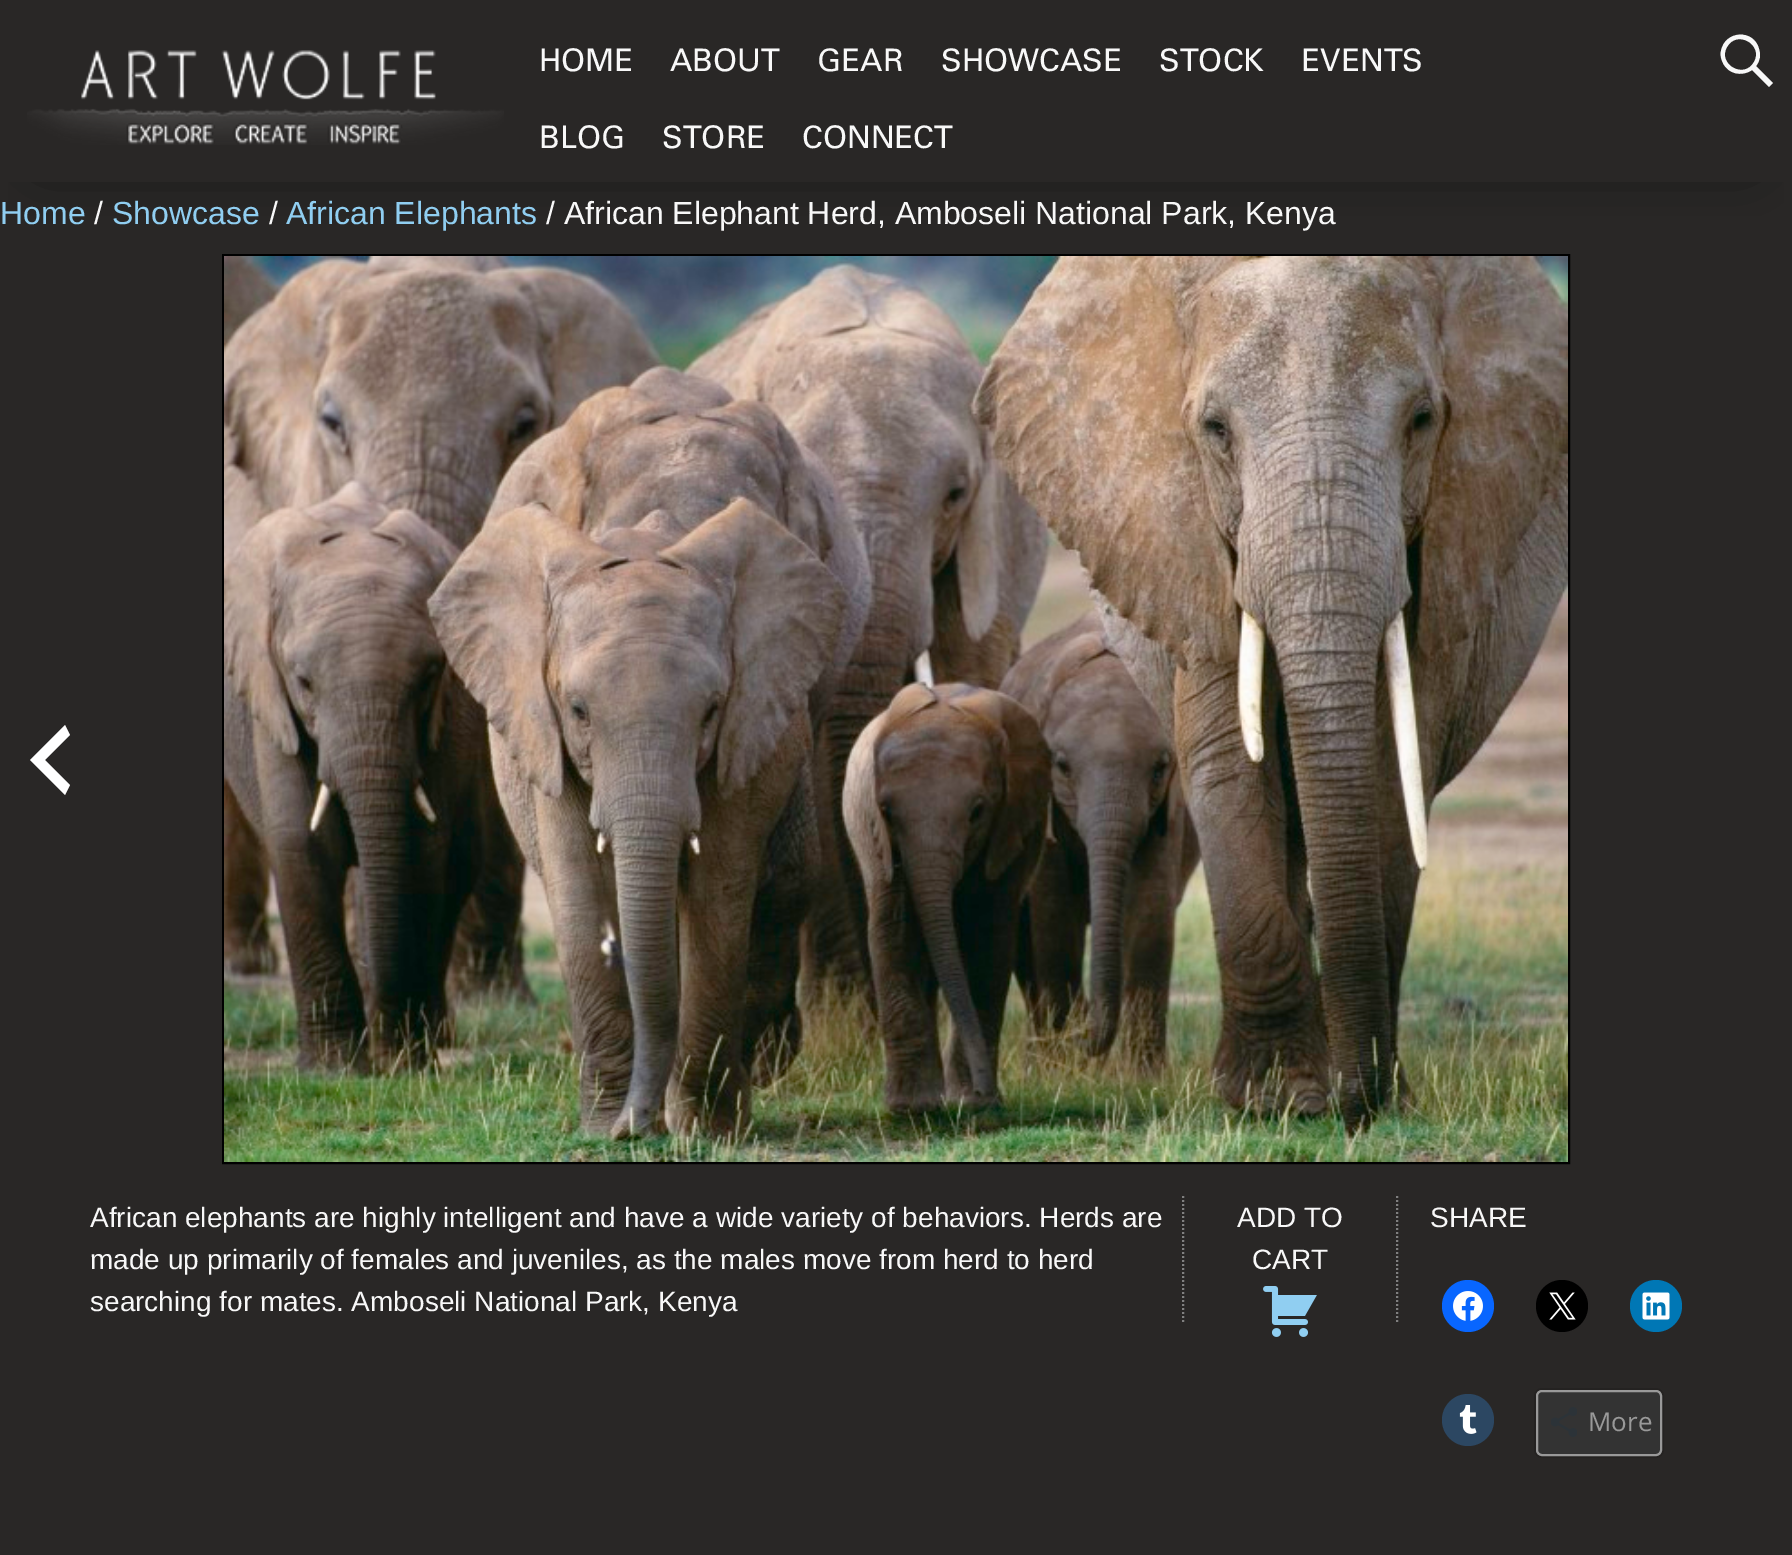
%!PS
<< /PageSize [1792 1555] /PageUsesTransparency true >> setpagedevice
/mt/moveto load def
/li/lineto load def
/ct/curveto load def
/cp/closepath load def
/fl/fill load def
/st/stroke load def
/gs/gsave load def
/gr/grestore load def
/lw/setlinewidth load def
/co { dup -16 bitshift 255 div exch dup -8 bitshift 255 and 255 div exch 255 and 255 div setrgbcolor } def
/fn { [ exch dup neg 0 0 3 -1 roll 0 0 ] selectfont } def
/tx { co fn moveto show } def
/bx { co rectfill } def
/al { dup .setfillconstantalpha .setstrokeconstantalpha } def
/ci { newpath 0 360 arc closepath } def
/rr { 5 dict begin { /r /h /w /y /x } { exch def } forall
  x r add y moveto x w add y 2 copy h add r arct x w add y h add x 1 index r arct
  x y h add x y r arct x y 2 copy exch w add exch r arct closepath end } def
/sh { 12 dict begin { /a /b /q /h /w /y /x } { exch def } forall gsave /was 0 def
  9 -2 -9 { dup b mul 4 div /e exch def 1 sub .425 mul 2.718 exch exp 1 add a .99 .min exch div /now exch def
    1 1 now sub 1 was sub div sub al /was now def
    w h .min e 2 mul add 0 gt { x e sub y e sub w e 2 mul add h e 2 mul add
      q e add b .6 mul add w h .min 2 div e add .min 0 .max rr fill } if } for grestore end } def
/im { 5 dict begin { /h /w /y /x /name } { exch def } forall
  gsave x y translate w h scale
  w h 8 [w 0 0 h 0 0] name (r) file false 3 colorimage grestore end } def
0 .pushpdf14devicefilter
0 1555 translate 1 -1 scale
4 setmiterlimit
0 0 1792 1555 16#292726 bx
gs
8 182 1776 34 rectclip
16#000000 co
44 60 1704 94 0 30 1 sh
gr
(media/1.raw) 27 50 477 95 im
16#F8F8F8 co
1773 83 mt 1769 87 li 1752 70 li 1742 77 1728 74 1723 63 ct 1721 59 1720 55 1721 51 ct 1725 30 1754 29 1759 49 ct 1761 55 1760 61 1756 66 ct cp 1727 47 mt 1717 64 1744 80 1754 62 ct 1764 45 1737 29 1727 47 ct cp fl
16#FFFFFF co
70 735 mt 45 760 li 70 785 li 65 795 li 30 760 li 65 725 li cp fl
16#000000 co
2 lw
223 255 1346 908 rectstroke
(media/2.raw) 224 256 1344 906 im
16#808080 co
[2 2] 0 setdash
1397 1196 mt 1397 1324 li st
1183 1196 mt 1183 1324 li st
(media/3.raw) 1263 1286 54 51 im
16#0866FF co
1468 1306 26 ci fl
(media/4.raw) 1453 1291 30 30 im
16#000000 co
1562 1306 26 ci fl
(media/5.raw) 1549 1292 27 28 im
16#0077B5 co
1656 1306 26 ci fl
(media/6.raw) 1642 1292 28 28 im
16#2C4762 co
1468 1420 26 ci fl
(media/7.raw) 1459 1405 18 29 im
16#242221 co
[] 0 setdash
1535 1389 128 68 7 rr st
16#333333 co
1537 1391 124 64 5 rr gs fl gr
16#999999 co
st
(media/8.raw) 1551 1407 26 30 im
(HOME) 539 71 /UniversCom-Regular 31 16#F8F8F8 tx
(ABOUT) 670 71 /UniversCom-Regular 31 16#F8F8F8 tx
(GEAR) 817 71 /UniversCom-Regular 31 16#F8F8F8 tx
(SHOWCASE) 941 71 /UniversCom-Regular 31 16#F8F8F8 tx
(STOCK) 1159 71 /UniversCom-Regular 31 16#F8F8F8 tx
(EVENTS) 1301 71 /UniversCom-Regular 31 16#F8F8F8 tx
(BLOG) 539 148 /UniversCom-Regular 31 16#F8F8F8 tx
(STORE) 662 148 /UniversCom-Regular 31 16#F8F8F8 tx
(CONNECT) 802 148 /UniversCom-Regular 31 16#F8F8F8 tx
(Home) 0 224 /LiberationSans-Regular 32 16#90CEF1 tx
(/) 94 224 /LiberationSans-Regular 32 16#F8F8F8 tx
(Showcase) 112 224 /LiberationSans-Regular 32 16#90CEF1 tx
(/) 269 224 /LiberationSans-Regular 32 16#F8F8F8 tx
(African Elephants) 286 224 /LiberationSans-Regular 32 16#90CEF1 tx
(/ African Elephant Herd, Amboseli National Park, Kenya) 546 224 /LiberationSans-Regular 32 16#F8F8F8 tx
(African elephants are highly intelligent and have a wide variety of behaviors. Herds are) 90 1227 /LiberationSans-Regular 28 16#F8F8F8 tx
(made up primarily of females and juveniles, as the males move from herd to herd) 90 1269 /LiberationSans-Regular 28 16#F8F8F8 tx
(searching for mates. Amboseli National Park, Kenya) 90 1311 /LiberationSans-Regular 28 16#F8F8F8 tx
(ADD TO) 1237 1227 /LiberationSans-Regular 28 16#F8F8F8 tx
(CART) 1252 1269 /LiberationSans-Regular 28 16#F8F8F8 tx
(SHARE) 1430 1227 /LiberationSans-Regular 28 16#F8F8F8 tx
(More) 1588 1431 /OpenSans-Regular 26 16#999999 tx
.poppdf14devicefilter showpage
